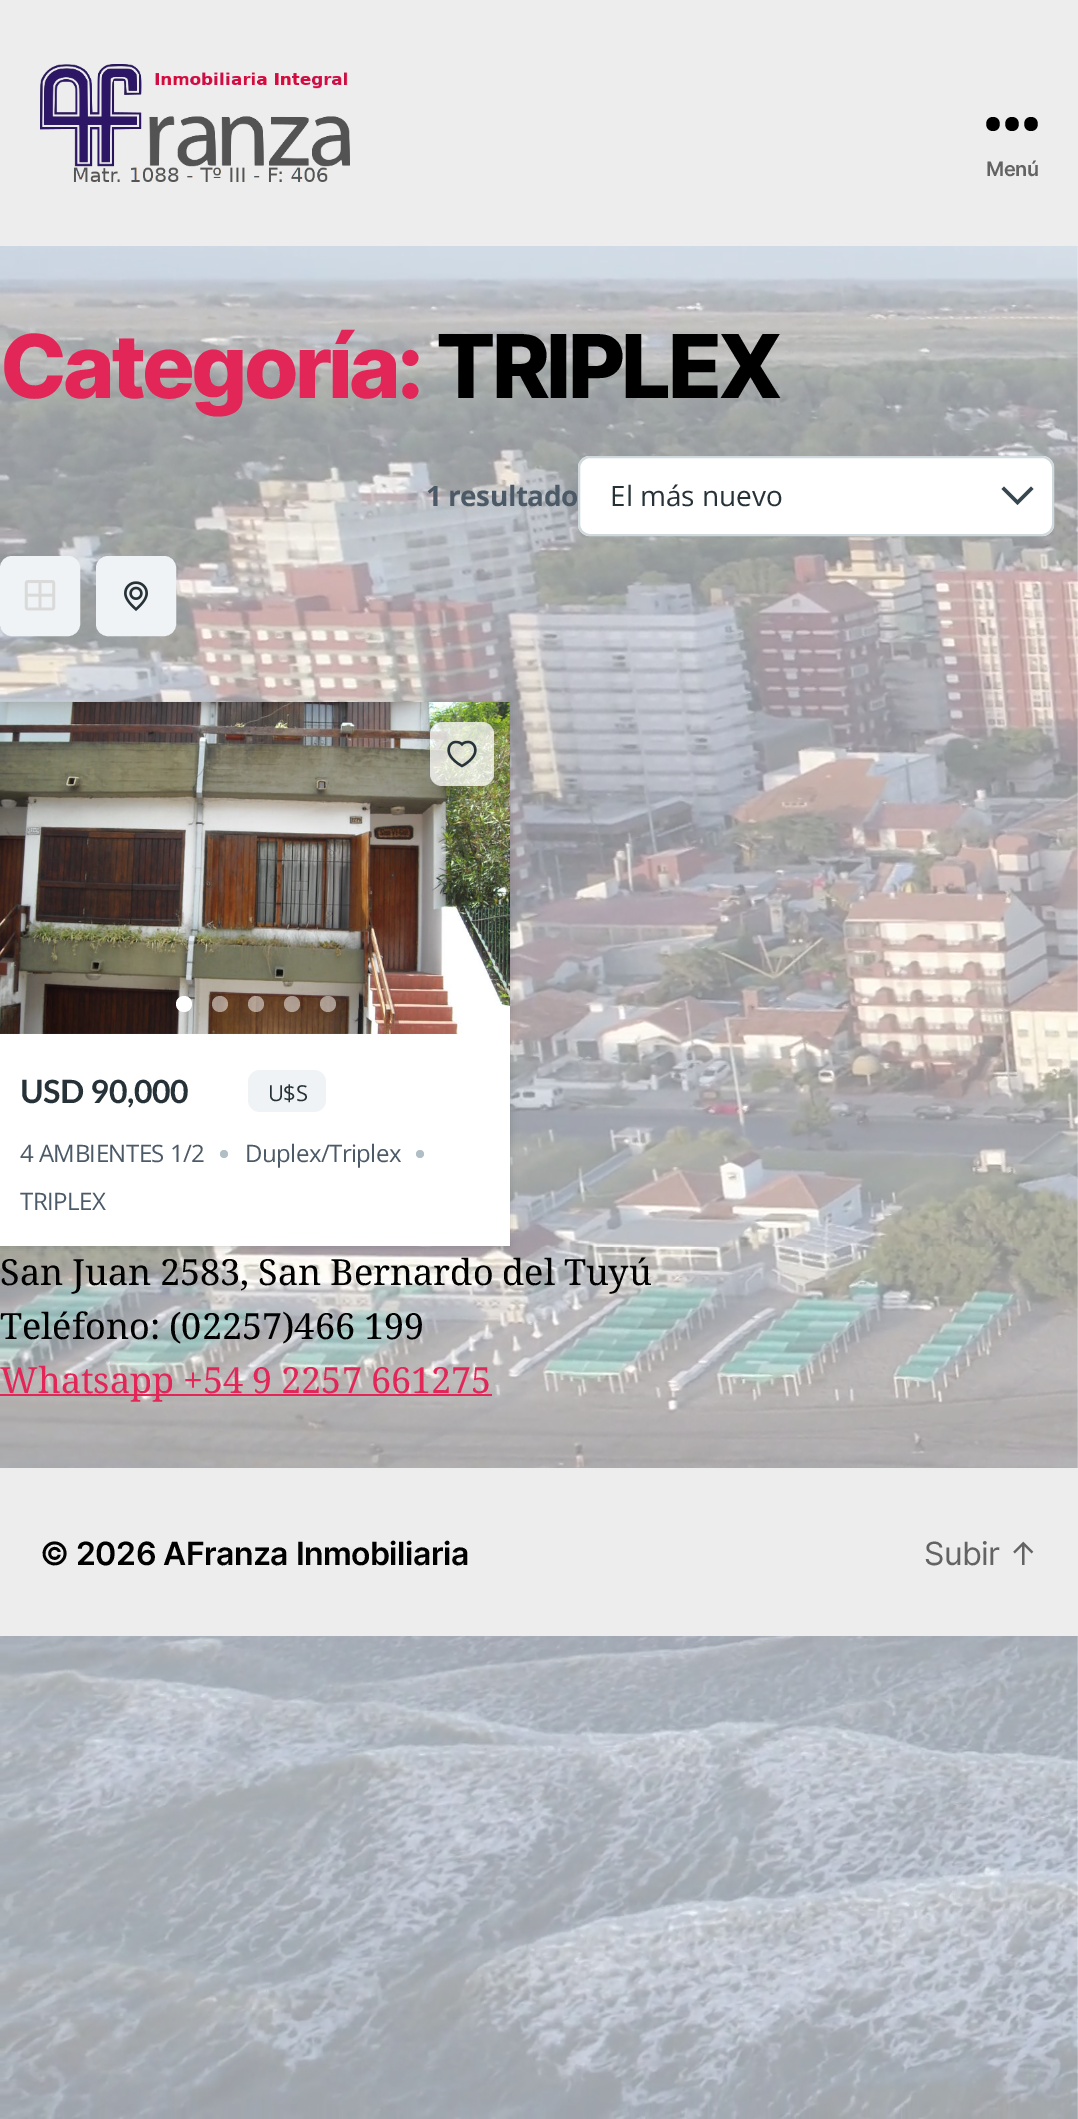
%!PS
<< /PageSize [1078 2119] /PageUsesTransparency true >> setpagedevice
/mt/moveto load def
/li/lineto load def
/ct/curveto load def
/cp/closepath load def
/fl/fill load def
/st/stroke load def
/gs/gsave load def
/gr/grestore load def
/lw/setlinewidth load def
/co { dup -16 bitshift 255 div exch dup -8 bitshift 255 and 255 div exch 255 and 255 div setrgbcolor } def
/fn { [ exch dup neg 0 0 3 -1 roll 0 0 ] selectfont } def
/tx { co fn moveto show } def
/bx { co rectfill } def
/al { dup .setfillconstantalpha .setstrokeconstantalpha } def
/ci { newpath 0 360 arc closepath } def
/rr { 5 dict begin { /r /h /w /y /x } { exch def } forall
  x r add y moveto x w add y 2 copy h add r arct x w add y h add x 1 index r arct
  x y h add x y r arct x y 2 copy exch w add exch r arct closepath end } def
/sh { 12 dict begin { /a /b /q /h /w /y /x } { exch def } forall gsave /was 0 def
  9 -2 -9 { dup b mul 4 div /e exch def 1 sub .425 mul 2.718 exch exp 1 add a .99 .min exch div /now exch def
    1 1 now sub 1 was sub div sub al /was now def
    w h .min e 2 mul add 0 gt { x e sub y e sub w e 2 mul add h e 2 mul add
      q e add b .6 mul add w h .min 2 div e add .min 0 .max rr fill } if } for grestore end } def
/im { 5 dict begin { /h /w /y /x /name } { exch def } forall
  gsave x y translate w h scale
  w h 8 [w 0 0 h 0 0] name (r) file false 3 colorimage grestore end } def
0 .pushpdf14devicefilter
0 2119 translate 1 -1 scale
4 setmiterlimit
0 0 1078 2119 16#FFFFFF bx
(media/1.raw) 0 246 1078 1873 im
0 0 1078 246 16#EDEDED bx
(media/2.raw) 40 64 310 118 im
16#000000 co
993 131 mt 984 131 984 117 993 117 ct 1002 117 1002 131 993 131 ct cp 1012 131 mt 1003 131 1003 117 1012 117 ct 1021 117 1021 131 1012 131 ct cp 1031 131 mt 1022 131 1022 117 1031 117 ct 1040 117 1040 131 1031 131 ct cp eofill
16#FFFFFF co
578 456 476 80 12 rr fl
16#37474F co
1031 486.5 mt 1033.5 489 li 1017.5 505 li 1001.5 489 li 1004 486.5 li 1017.5 500 li cp eofill
16#CFD8DC co
2 lw
579 457 474 78 11 rr st
16#EFF3F5 co
2 558 76 76 10 rr gs fl gr
4 lw
st
(media/3.raw) 24 580 32 31 im
98 558 76 76 10 rr gs fl gr
st
(media/4.raw) 124 581 24 30 im
16#263238 co
0 704 510 544 0 4 .2 sh
0 1033 510 213 16#FFFFFF bx
(media/5.raw) 0 702 510 332 im
184 1004 8 ci fl
0.5 al
220 1004 8 ci fl
256 1004 8 ci fl
292 1004 8 ci fl
328 1004 8 ci fl
gs
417 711 mt 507 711 li 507 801 li 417 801 li cp 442 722 mt 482 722 li 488.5 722 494 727.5 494 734 ct 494 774 li 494 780.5 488.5 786 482 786 ct 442 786 li 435.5 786 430 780.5 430 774 ct 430 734 li 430 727.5 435.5 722 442 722 ct cp eoclip newpath
1 al
16#263238 co
430 724 64 64 12 4 .2 sh
gr
0.75 al
430 722 64 64 12 rr fl
1 al
(media/6.raw) 447 740 30 28 im
16#EFF3F5 co
248 1070 78 42 12 rr fl
16#B0BEC5 co
224 1154 4 ci fl
420 1154 4 ci fl
0 1394 492 2 16#E22658 bx
0 1468 1078 168 16#EDEDED bx
/Inter-SemiBold 20 fn
16#636363 co
986 176 mt -.55 0 (Menú) ashow
/Inter-ExtraBold 88 fn
16#E22658 co
0 398 mt -3.75 0 (Categoría:) ashow
16#000000 co
436 398 mt -3.75 0 (TRIPLEX) ashow
/OpenSans-Bold 28 fn
16#4C5A67 co
426 506 mt -.55 0 (1 resultado) ashow
(El más nuevo) 610 506 /OpenSans-Regular 28 16#263238 tx
/Lato-Bold 32 fn
20 1103 mt -.55 0 (USD 90,000) ashow
/OpenSans-Regular 22 fn
268 1101 mt -.55 0 (U$S) ashow
/OpenSans-Regular 24 fn
16#4C5A67 co
20 1162 mt -.55 0 (4 AMBIENTES 1/2) ashow
245 1162 mt -.55 0 (Duplex/Triplex) ashow
20 1210 mt -.55 0 (TRIPLEX) ashow
/NotoSerif-Regular 36 fn
16#000000 co
0 1285 mt -.5 0 32 (San Juan 2583, San Bernardo del Tuyú) widthshow
0 1339 mt -.5 0 32 (Teléfono: \(02257\)466 199) widthshow
16#E22658 co
0 1393 mt -.5 0 32 (Whatsapp +54 9 2257 661275) widthshow
/Inter-SemiBold 32 fn
16#000000 co
40 1565 mt -.55 0 (© 2026 AFranza Inmobiliaria) ashow
/Inter-Regular 32 fn
16#636363 co
924 1565 mt -.55 0 (Subir ↑) ashow
.poppdf14devicefilter showpage
